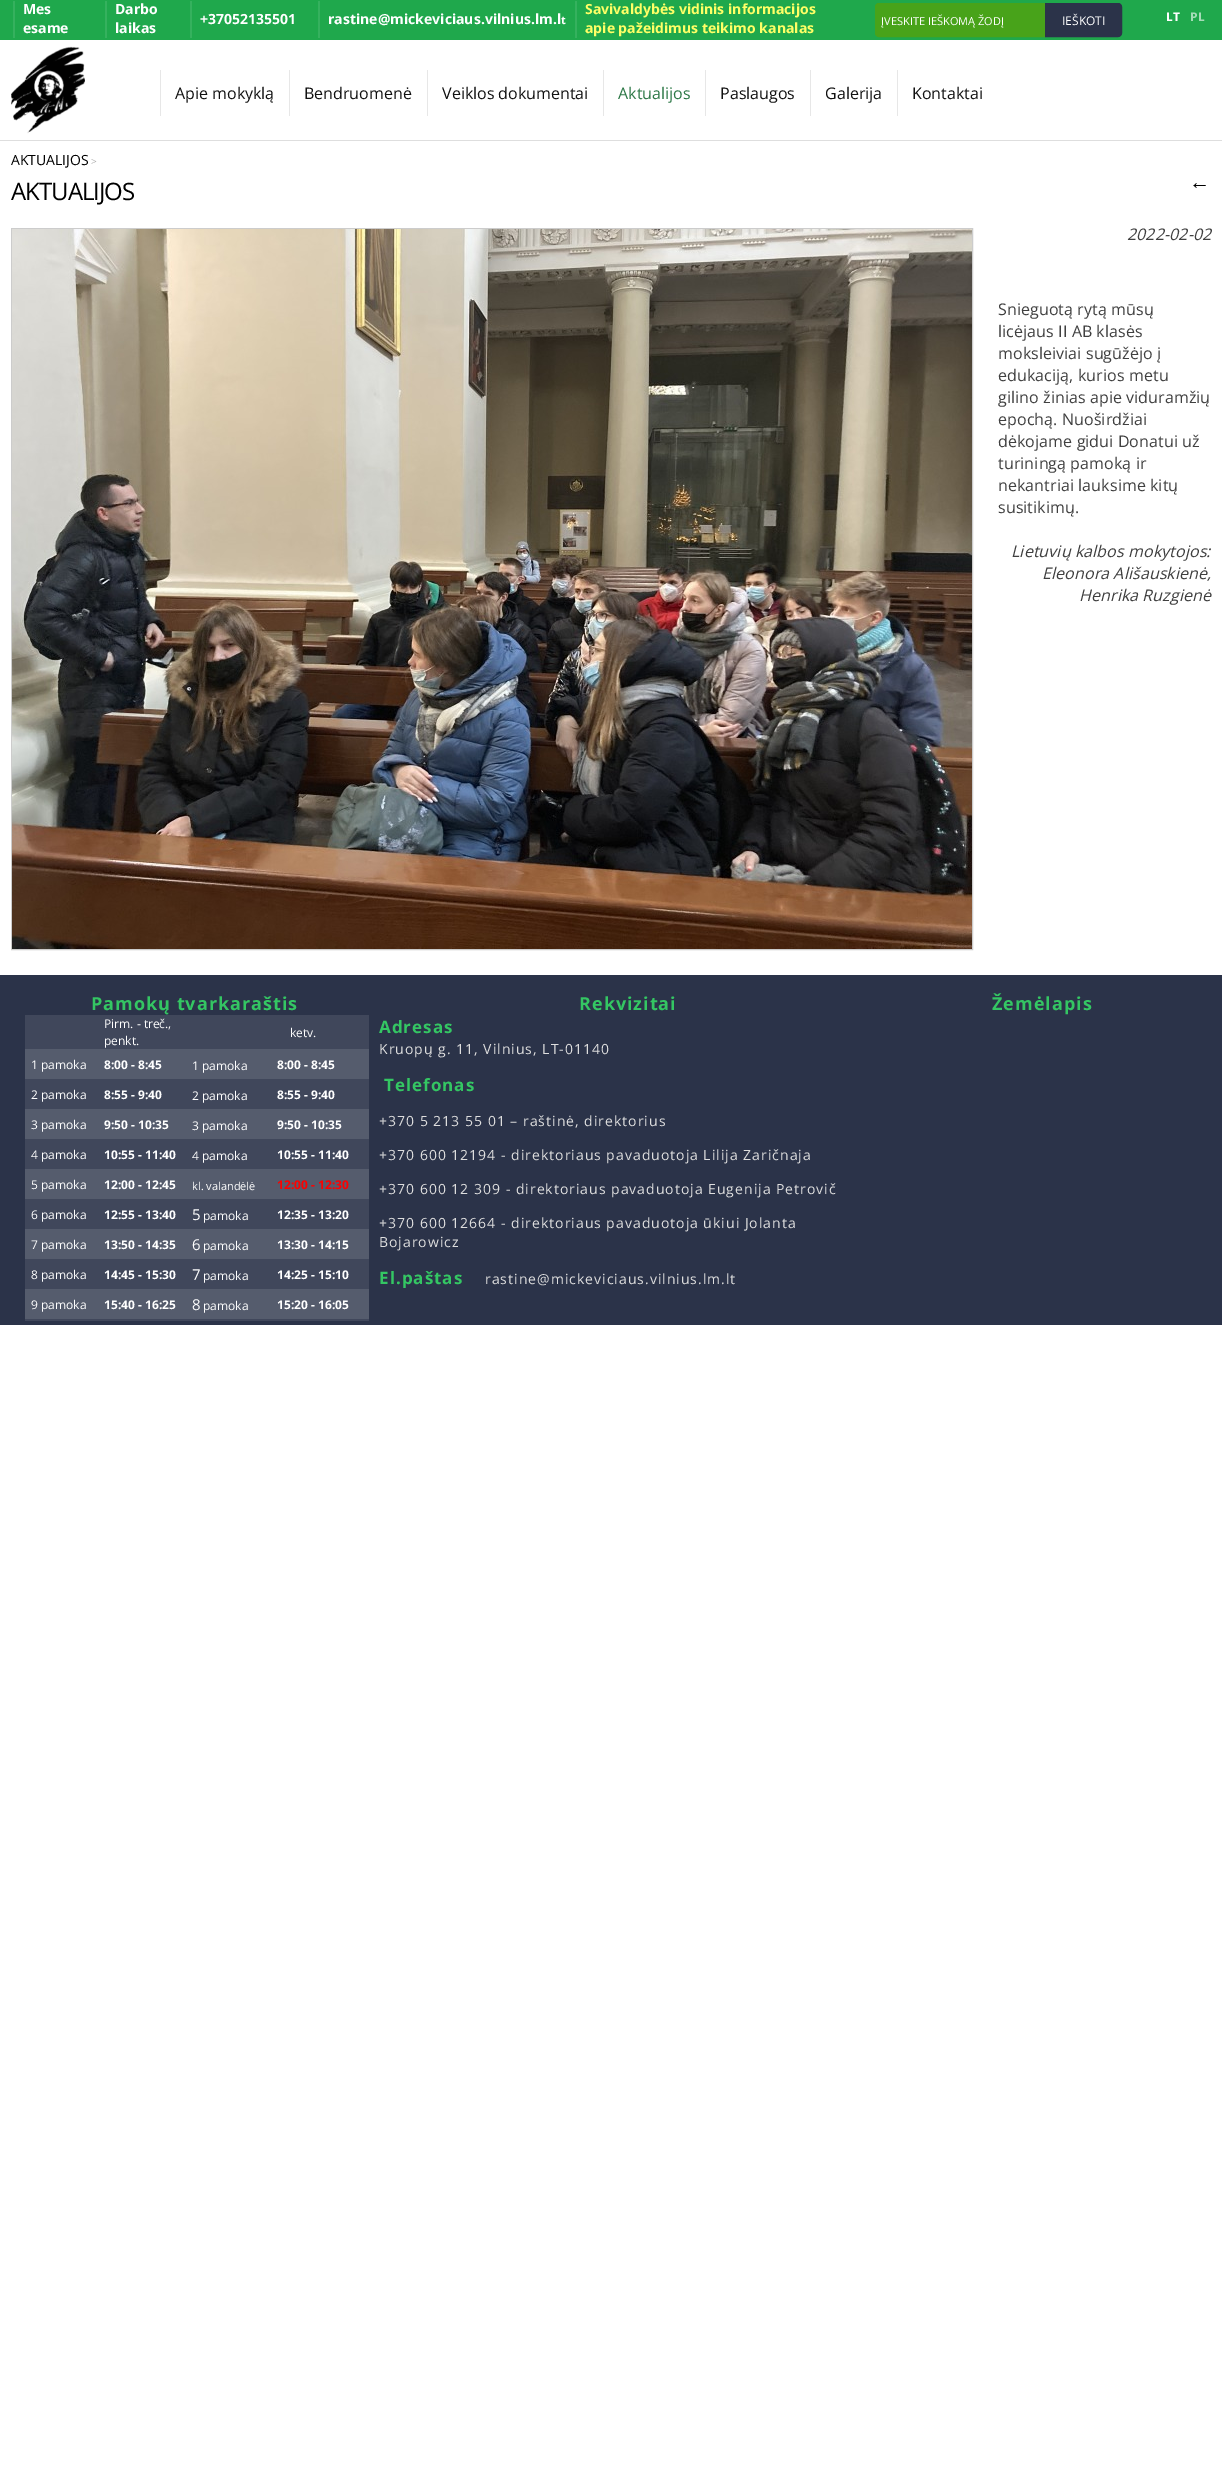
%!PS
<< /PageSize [1222 2469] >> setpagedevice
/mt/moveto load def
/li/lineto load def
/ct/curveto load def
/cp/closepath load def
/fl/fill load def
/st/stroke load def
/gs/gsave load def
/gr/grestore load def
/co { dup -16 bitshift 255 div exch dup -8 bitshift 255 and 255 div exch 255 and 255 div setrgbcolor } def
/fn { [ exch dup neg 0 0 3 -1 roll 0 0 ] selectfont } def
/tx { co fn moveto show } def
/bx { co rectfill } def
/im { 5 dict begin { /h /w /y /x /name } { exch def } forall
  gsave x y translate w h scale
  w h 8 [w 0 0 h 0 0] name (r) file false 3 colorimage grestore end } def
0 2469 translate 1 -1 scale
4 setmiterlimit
0 0 1222 2469 16#FFFFFF bx
0 0 1222 40 16#1FA84C bx
0 140 1222 1 16#DEDEDE bx
13 1 2 37 16#35B15E bx
105 1 2 37 16#35B15E bx
190 1 2 37 16#35B15E bx
318 1 2 37 16#35B15E bx
575 1 2 37 16#35B15E bx
16#48A31A co
879 3.5 mt 1044.5 3.5 li 1044.5 36.5 li 879 36.5 li 877 36.5 875.5 35 875.5 33 ct 875.5 7 li 875.5 5 877 3.5 879 3.5 ct cp gs fl gr
st
16#2B3349 co
1045.5 3.5 mt 1118 3.5 li 1120 3.5 1121.5 5 1121.5 7 ct 1121.5 33 li 1121.5 35 1120 36.5 1118 36.5 ct 1045.5 36.5 li cp gs fl gr
st
(media/1.raw) 11 46 74 88 im
160 70 1 46 16#E7E7E7 bx
289 70 1 46 16#E7E7E7 bx
427 70 1 46 16#E7E7E7 bx
603 70 1 46 16#E7E7E7 bx
705 70 1 46 16#E7E7E7 bx
810 70 1 46 16#E7E7E7 bx
897 70 1 46 16#E7E7E7 bx
16#CCCCCC co
11.5 228.5 961 721 rectstroke
(media/2.raw) 12 229 960 720 im
0 975 1222 350 16#2B3349 bx
25 1015 344 34 16#40475B bx
25 1049 344 30 16#555C6D bx
25 1079 344 30 16#40475B bx
25 1109 344 30 16#555C6D bx
25 1139 344 30 16#40475B bx
25 1169 344 30 16#555C6D bx
25 1199 344 30 16#40475B bx
25 1229 344 30 16#555C6D bx
25 1259 344 30 16#40475B bx
25 1289 344 30 16#555C6D bx
25 1319 344 2 16#40475B bx
(Mes) 23 14 /OpenSans-Bold 14 16#FFFFFF tx
(esame) 23 33 /OpenSans-Bold 14 16#FFFFFF tx
(Darbo) 115 14 /OpenSans-Bold 14 16#FFFFFF tx
(laikas) 115 33 /OpenSans-Bold 14 16#FFFFFF tx
(+37052135501) 200 24 /OpenSans-Bold 14 16#FFFFFF tx
(rastine@mickeviciaus.vilnius.lm.l) 328 24 /OpenSans-Bold 14 16#FFFFFF tx
(t) 561 24 /OpenSans-Bold 11 16#FFFFFF tx
(Savivaldybės vidinis informacijos) 585 14 /OpenSans-Bold 14 16#FFFF66 tx
(apie pažeidimus teikimo kanalas) 585 33 /OpenSans-Bold 14 16#FFFF66 tx
(ĮVESKITE IEŠKOMĄ ŽODĮ) 881 25 /OpenSans-Regular 11 16#FFFFFF tx
(IEŠKOTI) 1062 25 /OpenSans-Regular 12 16#FFFFFF tx
(LT) 1166 21 /OpenSans-Bold 12 16#FFFFFF tx
(PL) 1190 21 /OpenSans-Bold 12 16#A5DCB7 tx
(Apie mokyklą) 175 99 /OpenSans-Regular 16 16#111111 tx
(Bendruomenė) 304 99 /OpenSans-Regular 16 16#111111 tx
(Veiklos dokumentai) 442 99 /OpenSans-Regular 16 16#111111 tx
(Aktualijos) 618 99 /OpenSans-Regular 16 16#2B7745 tx
(Paslaugos) 720 99 /OpenSans-Regular 16 16#111111 tx
(Galerija) 825 99 /OpenSans-Regular 16 16#111111 tx
(Kontaktai) 912 99 /OpenSans-Regular 16 16#111111 tx
(AKTUALIJOS) 11 165 /OpenSans-Regular 14 16#000000 tx
(>) 91 165 /OpenSans-Regular 10 16#B5B5B5 tx
/OpenSans-Regular 24 fn
16#000000 co
11 200 mt -1 0 (AKTUALIJOS) ashow
(←) 1189 189 /LiberationSans-Regular 21 16#000000 tx
/OpenSans-Italic 16 fn
16#404040 co
1127 240 mt .1 0 (2022-02-02) ashow
/OpenSans-Regular 16 fn
998 315 mt .1 0 (Snieguotą rytą mūsų) ashow
998 337 mt .1 0 (licėjaus II AB klasės) ashow
998 359 mt .1 0 (moksleiviai sugūžėjo į) ashow
998 381 mt .1 0 (edukaciją, kurios metu) ashow
998 403 mt .1 0 (gilino žinias apie viduramžių) ashow
998 425 mt .1 0 (epochą. Nuoširdžiai) ashow
998 447 mt .1 0 (dėkojame gidui Donatui už) ashow
998 469 mt .1 0 (turiningą pamoką ir) ashow
998 491 mt .1 0 (nekantriai lauksime kitų) ashow
998 513 mt .1 0 (susitikimų.) ashow
/OpenSans-Italic 16 fn
1011 557 mt .1 0 (Lietuvių kalbos mokytojos:) ashow
1042 579 mt .1 0 (Eleonora Ališauskienė,) ashow
1079 601 mt .1 0 (Henrika Ruzgienė) ashow
/OpenSans-Bold 18 fn
16#34C663 co
91 1010 mt 1 0 (Pamokų tvarkaraštis) ashow
(Pirm. - treč.,) 104 1028 /OpenSans-Regular 12 16#FFFFFF tx
(penkt.) 104 1045 /OpenSans-Regular 12 16#FFFFFF tx
(ketv.) 290 1037 /OpenSans-Regular 12 16#FFFFFF tx
(1 pamoka) 31 1069 /OpenSans-Regular 12 16#FFFFFF tx
(8:00 - 8:45) 104 1069 /OpenSans-Bold 12 16#FFFFFF tx
(1 pamoka) 192 1070 /OpenSans-Regular 12 16#FFFFFF tx
(8:00 - 8:45) 277 1069 /OpenSans-Bold 12 16#FFFFFF tx
(2 pamoka) 31 1099 /OpenSans-Regular 12 16#FFFFFF tx
(8:55 - 9:40) 104 1099 /OpenSans-Bold 12 16#FFFFFF tx
(2 pamoka) 192 1100 /OpenSans-Regular 12 16#FFFFFF tx
(8:55 - 9:40) 277 1099 /OpenSans-Bold 12 16#FFFFFF tx
(3 pamoka) 31 1129 /OpenSans-Regular 12 16#FFFFFF tx
(9:50 - 10:35) 104 1129 /OpenSans-Bold 12 16#FFFFFF tx
(3 pamoka) 192 1130 /OpenSans-Regular 12 16#FFFFFF tx
(9:50 - 10:35) 277 1129 /OpenSans-Bold 12 16#FFFFFF tx
(4 pamoka) 31 1159 /OpenSans-Regular 12 16#FFFFFF tx
(10:55 - 11:40) 104 1159 /OpenSans-Bold 12 16#FFFFFF tx
(4 pamoka) 192 1160 /OpenSans-Regular 12 16#FFFFFF tx
(10:55 - 11:40) 277 1159 /OpenSans-Bold 12 16#FFFFFF tx
(5 pamoka) 31 1189 /OpenSans-Regular 12 16#FFFFFF tx
(12:00 - 12:45) 104 1189 /OpenSans-Bold 12 16#FFFFFF tx
(kl. valandėlė) 192 1190 /OpenSans-Regular 11 16#FFFFFF tx
(12:00 - 12:30) 277 1189 /OpenSans-Bold 12 16#FF0000 tx
(6 pamoka) 31 1219 /OpenSans-Regular 12 16#FFFFFF tx
(12:55 - 13:40) 104 1219 /OpenSans-Bold 12 16#FFFFFF tx
(5) 192 1220 /OpenSans-Regular 15 16#FFFFFF tx
(pamoka) 203 1220 /OpenSans-Regular 12 16#FFFFFF tx
(12:35 - 13:20) 277 1219 /OpenSans-Bold 12 16#FFFFFF tx
(7 pamoka) 31 1249 /OpenSans-Regular 12 16#FFFFFF tx
(13:50 - 14:35) 104 1249 /OpenSans-Bold 12 16#FFFFFF tx
(6) 192 1250 /OpenSans-Regular 15 16#FFFFFF tx
(pamoka) 203 1250 /OpenSans-Regular 12 16#FFFFFF tx
(13:30 - 14:15) 277 1249 /OpenSans-Bold 12 16#FFFFFF tx
(8 pamoka) 31 1279 /OpenSans-Regular 12 16#FFFFFF tx
(14:45 - 15:30) 104 1279 /OpenSans-Bold 12 16#FFFFFF tx
(7) 192 1280 /OpenSans-Regular 15 16#FFFFFF tx
(pamoka) 203 1280 /OpenSans-Regular 12 16#FFFFFF tx
(14:25 - 15:10) 277 1279 /OpenSans-Bold 12 16#FFFFFF tx
(9 pamoka) 31 1309 /OpenSans-Regular 12 16#FFFFFF tx
(15:40 - 16:25) 104 1309 /OpenSans-Bold 12 16#FFFFFF tx
(8) 192 1310 /OpenSans-Regular 15 16#FFFFFF tx
(pamoka) 203 1310 /OpenSans-Regular 12 16#FFFFFF tx
(15:20 - 16:05) 277 1309 /OpenSans-Bold 12 16#FFFFFF tx
/OpenSans-Bold 18 fn
16#34C663 co
579 1010 mt 1 0 (Rekvizitai) ashow
/OpenSans-Bold 17 fn
379 1033 mt 1 0 (Adresas) ashow
/OpenSans-Regular 14 fn
16#DEDEDE co
379 1054 mt 1 0 (Kruopų g. 11, Vilnius, LT-01140) ashow
/OpenSans-Bold 17 fn
16#34C663 co
384 1091 mt 1 0 (Telefonas) ashow
/OpenSans-Regular 14 fn
16#DEDEDE co
379 1126 mt 1 0 (+370 5 213 55 01 – raštinė, direktorius) ashow
379 1160 mt 1 0 (+370 600 12194 - direktoriaus pavaduotoja Lilija Zaričnaja) ashow
379 1194 mt 1 0 (+370 600 12 309 - direktoriaus pavaduotoja Eugenija Petrovič) ashow
379 1228 mt 1 0 (+370 600 12664 - direktoriaus pavaduotoja ūkiui Jolanta) ashow
379 1247 mt 1 0 (Bojarowicz) ashow
/OpenSans-Bold 17 fn
16#34C663 co
379 1284 mt 1 0 (El.paštas) ashow
/OpenSans-Regular 14 fn
16#DEDEDE co
485 1284 mt 1 0 (rastine@mickeviciaus.vilnius.lm.lt) ashow
/OpenSans-Bold 18 fn
16#34C663 co
992 1010 mt 1 0 (Žemėlapis) ashow
showpage
